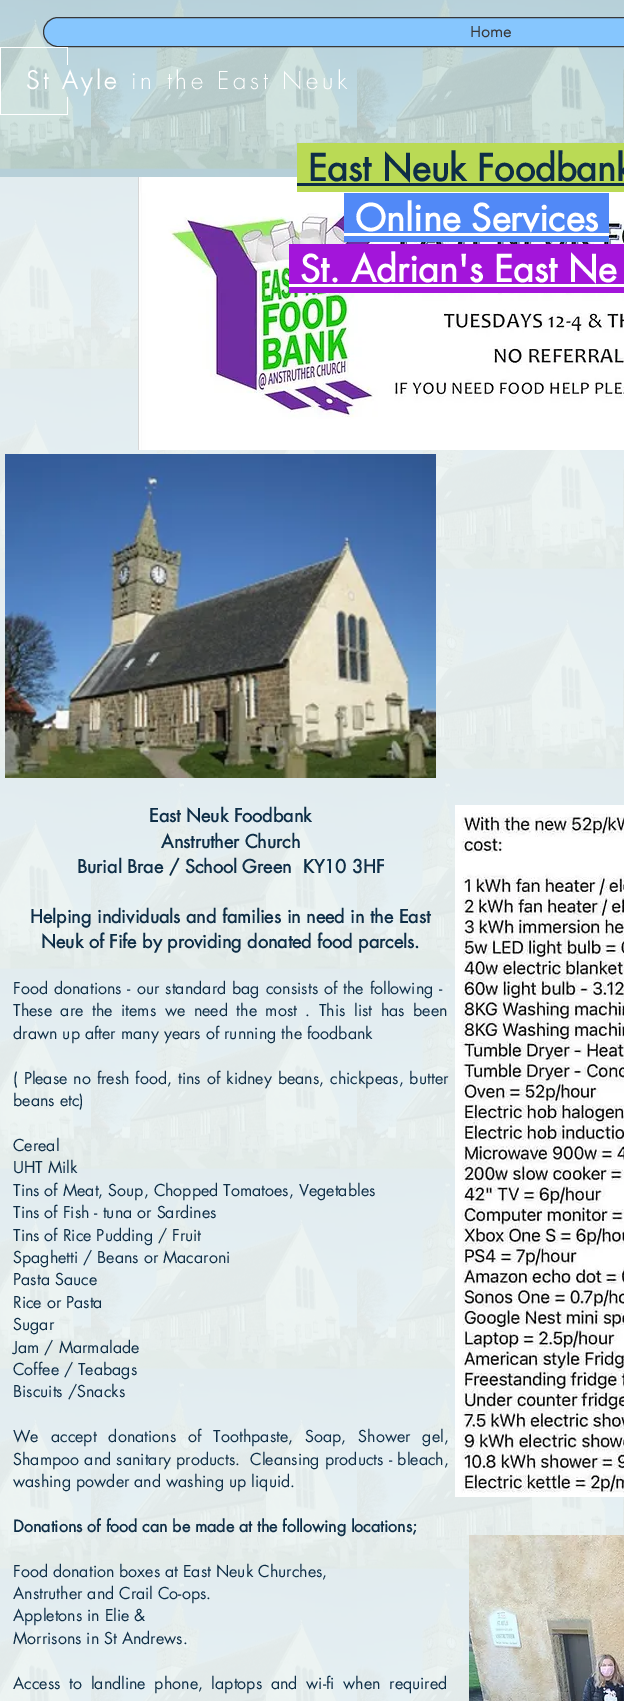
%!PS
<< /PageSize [624 1701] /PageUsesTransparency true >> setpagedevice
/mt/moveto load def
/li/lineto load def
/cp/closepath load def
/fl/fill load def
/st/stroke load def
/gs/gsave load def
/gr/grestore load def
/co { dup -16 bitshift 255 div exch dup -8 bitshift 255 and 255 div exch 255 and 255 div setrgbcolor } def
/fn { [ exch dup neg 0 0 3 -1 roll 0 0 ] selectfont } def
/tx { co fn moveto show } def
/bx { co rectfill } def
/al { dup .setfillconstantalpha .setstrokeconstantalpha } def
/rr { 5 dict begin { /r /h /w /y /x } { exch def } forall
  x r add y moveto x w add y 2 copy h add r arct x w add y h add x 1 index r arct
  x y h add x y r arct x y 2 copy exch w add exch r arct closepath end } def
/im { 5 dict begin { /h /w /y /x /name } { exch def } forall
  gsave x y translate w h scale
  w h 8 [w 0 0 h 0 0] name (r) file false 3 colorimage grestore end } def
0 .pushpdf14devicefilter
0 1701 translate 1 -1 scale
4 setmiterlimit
0 0 624 1701 16#CCE2E2 bx
(media/1.raw) 0 0 624 1701 im
16#86C6FE co
43.5 17.5 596 29 14.5 rr gs fl gr
16#383838 co
st
16#FFFFFF co
67 65 mt 67 48 li 1 48 li 1 114 li 67 114 li 67 97 li 68 97 li 68 115 li 0 115 li 0 47 li 68 47 li 68 65 li cp fl
0.6 al
0 177 624 1524 16#FFFFFF bx
1 al
(media/2.raw) 138 177 486 273 im
297 143 327 49 16#BADA55 bx
297 183 327 3 16#0E2E47 bx
344 193 265 49 16#5189F7 bx
344 233 265 3 16#FFFFFF bx
289 244 335 49 16#A315DA bx
289 284 335 3 16#FFFFFF bx
(media/3.raw) 5 454 431 324 im
(media/4.raw) 455 805 169 692 im
(media/5.raw) 469 1535 155 166 im
(Home) 470 37 /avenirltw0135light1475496-Bold 15 16#383838 tx
/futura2-Bold 24 fn
16#FFFFFF co
26 89 mt 3.6 0 (St Ayle) ashow
/futura-Light 24 fn
131 89 mt 3.6 0 (in the East Neuk) ashow
(East Neuk Foodbank) 308 181 /futura-Bold 36 16#0E2E47 tx
(Online Services) 355 231 /futura-Bold 36 16#FFFFFF tx
(St. Adrian's East Ne) 300 282 /futura-Bold 36 16#FFFFFF tx
(East Neuk Foodbank) 149 822 /futura-Bold 18 16#0E2E47 tx
(Anstruther Church) 161 848 /futura-Bold 18 16#0E2E47 tx
(Burial Brae / School Green  KY10 3HF) 77 873 /futura-Bold 18 16#0E2E47 tx
(Helping individuals and families in need in the East) 30 923 /futura-Bold 18 16#0E2E47 tx
(Neuk of Fife by providing donated food parcels.) 41 948 /futura-Bold 18 16#0E2E47 tx
/futura-Regular 16 fn
13 994 mt 1 0 32 (Food donations - our standard bag consists of the following -) widthshow
13 1016 mt 3.6 0 32 (These are the items we need the most . This list has been) widthshow
(drawn up after many years of running the foodbank) 13 1039 /futura-Regular 16 16#0E2E47 tx
13 1084 mt 1 0 32 (\( Please no fresh food, tins of kidney beans, chickpeas, butter) widthshow
(beans etc\)) 13 1106 /futura-Regular 16 16#0E2E47 tx
(Cereal) 13 1151 /futura-Regular 16 16#0E2E47 tx
(UHT Milk) 13 1173 /futura-Regular 16 16#0E2E47 tx
(Tins of Meat, Soup, Chopped Tomatoes, Vegetables) 13 1196 /futura-Regular 16 16#0E2E47 tx
(Tins of Fish - tuna or Sardines) 13 1218 /futura-Regular 16 16#0E2E47 tx
(Tins of Rice Pudding / Fruit) 13 1241 /futura-Regular 16 16#0E2E47 tx
(Spaghetti / Beans or Macaroni) 13 1263 /futura-Regular 16 16#0E2E47 tx
(Pasta Sauce) 13 1285 /futura-Regular 16 16#0E2E47 tx
(Rice or Pasta) 13 1308 /futura-Regular 16 16#0E2E47 tx
(Sugar) 13 1330 /futura-Regular 16 16#0E2E47 tx
(Jam / Marmalade) 13 1353 /futura-Regular 16 16#0E2E47 tx
(Coffee / Teabags) 13 1375 /futura-Regular 16 16#0E2E47 tx
(Biscuits /Snacks) 13 1397 /futura-Regular 16 16#0E2E47 tx
13 1442 mt 7 0 32 (We accept donations of Toothpaste, Soap, Shower gel,) widthshow
13 1465 mt .25 0 32 (Shampoo and sanitary products.  Cleansing products - bleach,) widthshow
(washing powder and washing up liquid.) 13 1487 /futura-Regular 16 16#0E2E47 tx
(Donations of food can be made at the following locations;) 13 1532 /futura-Bold 16 16#0E2E47 tx
(Food donation boxes at East Neuk Churches,) 13 1577 /futura-Regular 16 16#0E2E47 tx
(Anstruther and Crail Co-ops.) 13 1599 /futura-Regular 16 16#0E2E47 tx
(Appletons in Elie &) 13 1621 /futura-Regular 16 16#0E2E47 tx
(Morrisons in St Andrews.) 13 1644 /futura-Regular 16 16#0E2E47 tx
13 1689 mt 3.75 0 32 (Access to landline phone, laptops and wi-fi when required) widthshow
.poppdf14devicefilter showpage
